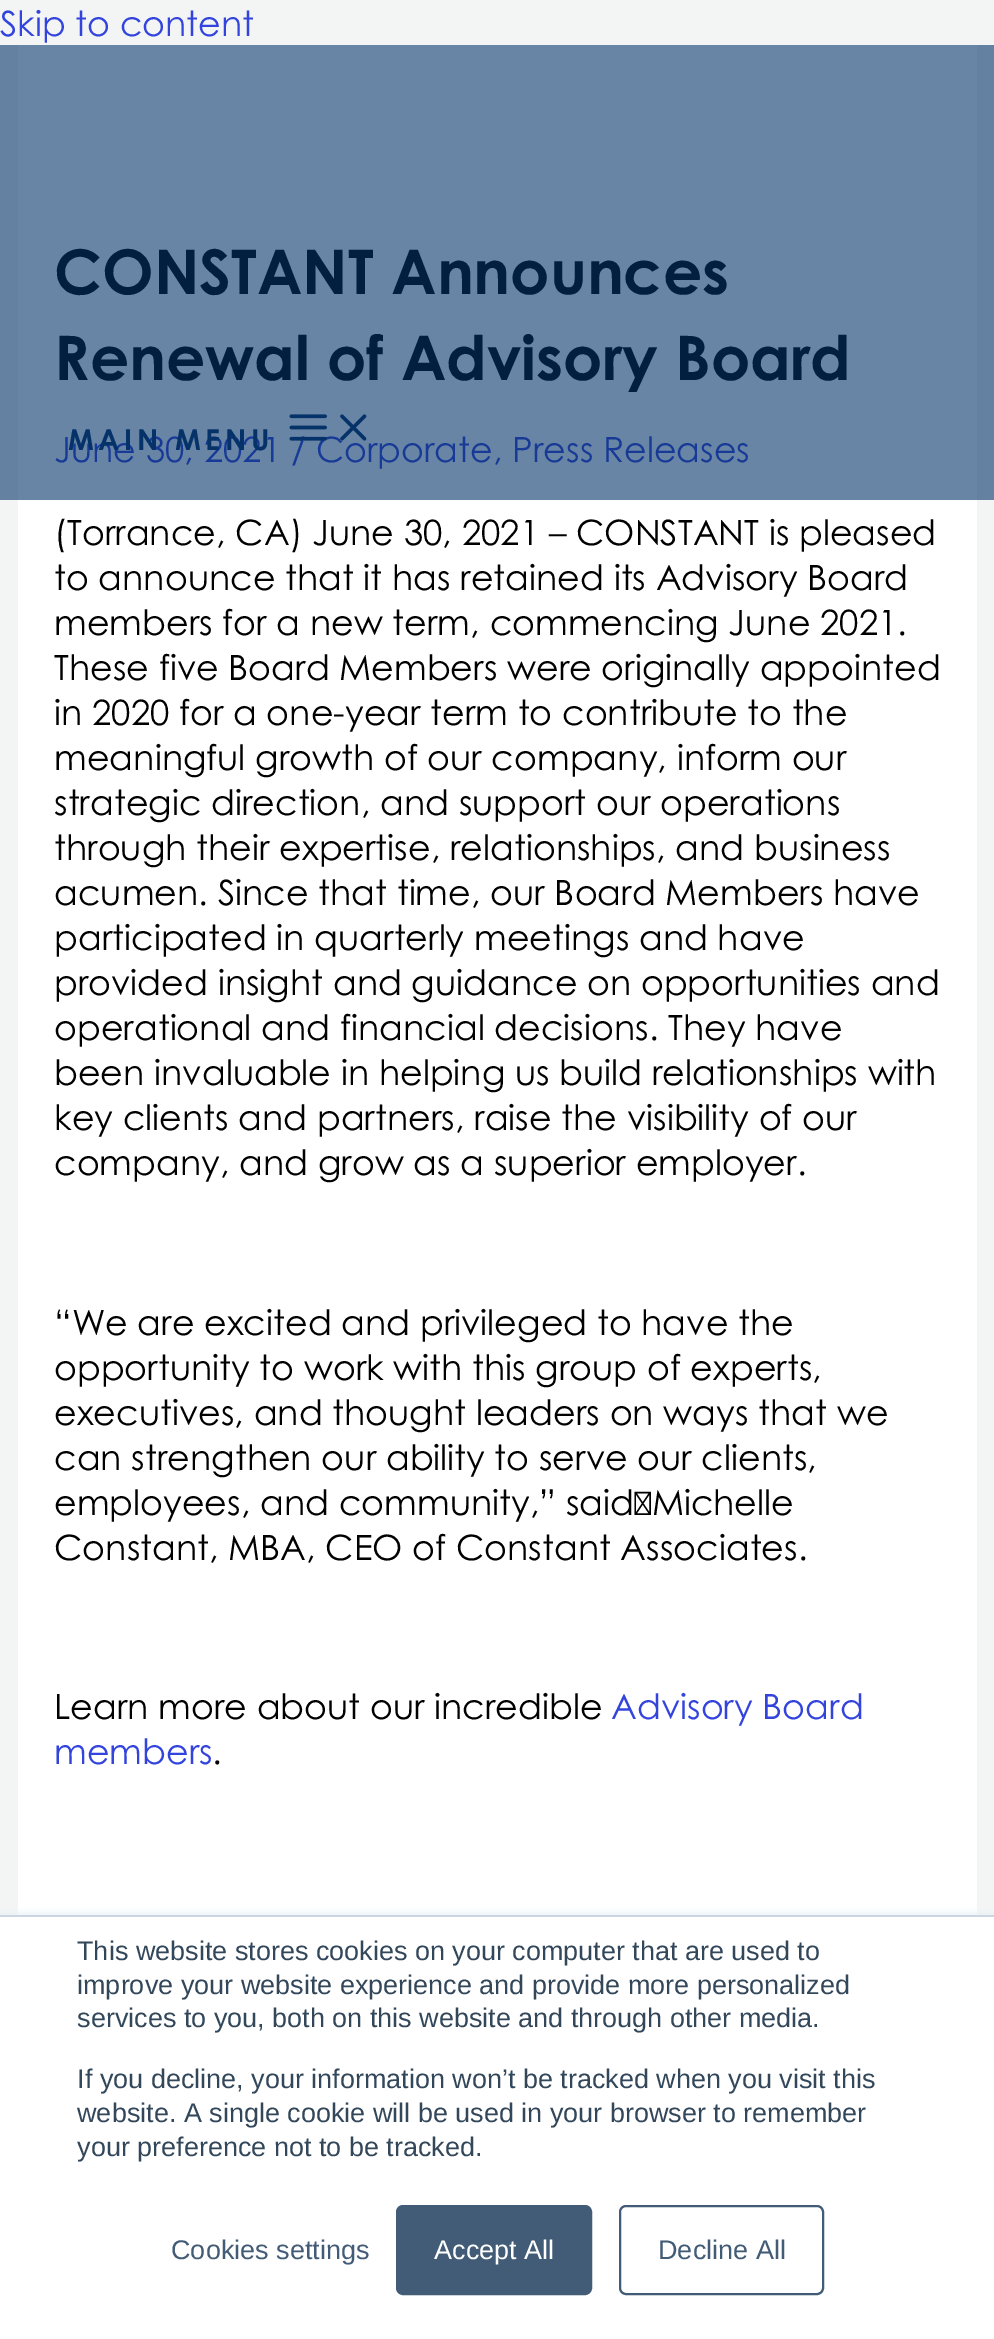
%!PS
<< /PageSize [994 2339] /PageUsesTransparency true >> setpagedevice
/mt/moveto load def
/fl/fill load def
/st/stroke load def
/gs/gsave load def
/gr/grestore load def
/lw/setlinewidth load def
/co { dup -16 bitshift 255 div exch dup -8 bitshift 255 and 255 div exch 255 and 255 div setrgbcolor } def
/fn { [ exch dup neg 0 0 3 -1 roll 0 0 ] selectfont } def
/tx { co fn moveto show } def
/bx { co rectfill } def
/al { dup .setfillconstantalpha .setstrokeconstantalpha } def
/rr { 5 dict begin { /r /h /w /y /x } { exch def } forall
  x r add y moveto x w add y 2 copy h add r arct x w add y h add x 1 index r arct
  x y h add x y r arct x y 2 copy exch w add exch r arct closepath end } def
/sh { 12 dict begin { /a /b /q /h /w /y /x } { exch def } forall gsave /was 0 def
  9 -2 -9 { dup b mul 4 div /e exch def 1 sub .425 mul 2.718 exch exp 1 add a .99 .min exch div /now exch def
    1 1 now sub 1 was sub div sub al /was now def
    w h .min e 2 mul add 0 gt { x e sub y e sub w e 2 mul add h e 2 mul add
      q e add b .6 mul add w h .min 2 div e add .min 0 .max rr fill } if } for grestore end } def
/im { 5 dict begin { /h /w /y /x /name } { exch def } forall
  gsave x y translate w h scale
  w h 8 [w 0 0 h 0 0] name (r) file false 3 colorimage grestore end } def
0 .pushpdf14devicefilter
0 2339 translate 1 -1 scale
4 setmiterlimit
0 0 994 2339 16#F3F5F5 bx
0 45 994 455 16#6481A1 bx
18 500 959 1415 16#FFFFFF bx
18 45 959 455 16#6985A5 bx
16#EAF0F6 co
0 1913 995 425 0 3.5 1 sh
0 1917 994 422 16#FFFFFF bx
0 1915 994 2 16#CBD6E2 bx
16#425B76 co
397 2206 194 88 6 rr gs fl gr
2 lw
st
620 2206 203 88 6 rr st
(Skip to content) 0 36 /CenturyGothic-Regular 34.9 16#3344DD tx
(CONSTANT Announces) 54 294 /CenturyGothic-Bold 61.5 16#031F3F tx
(Renewal of Advisory Board) 54 380 /CenturyGothic-Bold 61.5 16#031F3F tx
(June 30, 2021 / Corporate, Press Releases) 54 462 /CenturyGothic-Regular 34.9 16#173A97 tx
(\(Torrance, CA\) June 30, 2021 – CONSTANT is pleased) 54 545 /CenturyGothic-Regular 34.9 16#000000 tx
(to announce that it has retained its Advisory Board) 54 590 /CenturyGothic-Regular 34.9 16#000000 tx
(members for a new term, commencing June 2021.) 54 635 /CenturyGothic-Regular 34.9 16#000000 tx
(These five Board Members were originally appointed) 54 680 /CenturyGothic-Regular 34.9 16#000000 tx
(in 2020 for a one-year term to contribute to the) 54 725 /CenturyGothic-Regular 34.9 16#000000 tx
(meaningful growth of our company, inform our) 54 770 /CenturyGothic-Regular 34.9 16#000000 tx
(strategic direction, and support our operations) 54 815 /CenturyGothic-Regular 34.9 16#000000 tx
(through their expertise, relationships, and business) 54 860 /CenturyGothic-Regular 34.9 16#000000 tx
(acumen. Since that time, our Board Members have) 54 905 /CenturyGothic-Regular 34.9 16#000000 tx
(participated in quarterly meetings and have) 54 950 /CenturyGothic-Regular 34.9 16#000000 tx
(provided insight and guidance on opportunities and) 54 995 /CenturyGothic-Regular 34.9 16#000000 tx
(operational and financial decisions. They have) 54 1040 /CenturyGothic-Regular 34.9 16#000000 tx
(been invaluable in helping us build relationships with) 54 1085 /CenturyGothic-Regular 34.9 16#000000 tx
(key clients and partners, raise the visibility of our) 54 1130 /CenturyGothic-Regular 34.9 16#000000 tx
(company, and grow as a superior employer.) 54 1175 /CenturyGothic-Regular 34.9 16#000000 tx
(“We are excited and privileged to have the) 54 1335 /CenturyGothic-Regular 34.9 16#000000 tx
(opportunity to work with this group of experts,) 54 1380 /CenturyGothic-Regular 34.9 16#000000 tx
(executives, and thought leaders on ways that we) 54 1425 /CenturyGothic-Regular 34.9 16#000000 tx
(can strengthen our ability to serve our clients,) 54 1470 /CenturyGothic-Regular 34.9 16#000000 tx
(employees, and community,” said Michelle) 54 1515 /CenturyGothic-Regular 34.9 16#000000 tx
(Constant, MBA, CEO of Constant Associates.) 54 1560 /CenturyGothic-Regular 34.9 16#000000 tx
(Learn more about our incredible) 54 1719 /CenturyGothic-Regular 34.9 16#000000 tx
(Advisory Board) 611 1719 /CenturyGothic-Regular 34.9 16#3344DD tx
(members) 54 1764 /CenturyGothic-Regular 34.9 16#3344DD tx
(.) 212 1764 /CenturyGothic-Regular 34.9 16#000000 tx
/CenturyGothic-Bold 28.75 fn
16#053369 co
68 450 mt 4.5 0 (MAIN MENU) ashow
(media/1.raw) 289 414 38 27 im
(media/2.raw) 340 414 27 27 im
(This website stores cookies on your computer that are used to) 77 1960 /LiberationSans-Regular 27 16#33475B tx
(improve your website experience and provide more personalized) 77 1994 /LiberationSans-Regular 27 16#33475B tx
(services to you, both on this website and through other media.) 77 2027 /LiberationSans-Regular 27 16#33475B tx
(If you decline, your information won’t be tracked when you visit this) 77 2088 /LiberationSans-Regular 27 16#33475B tx
(website. A single cookie will be used in your browser to remember) 77 2122 /LiberationSans-Regular 27 16#33475B tx
(your preference not to be tracked.) 77 2156 /LiberationSans-Regular 27 16#33475B tx
(Cookies settings) 171 2259 /LiberationSans-Regular 27 16#425B76 tx
(Accept All) 434 2259 /LiberationSans-Regular 27 16#FFFFFF tx
(Decline All) 658 2259 /LiberationSans-Regular 27 16#425B76 tx
.poppdf14devicefilter showpage
